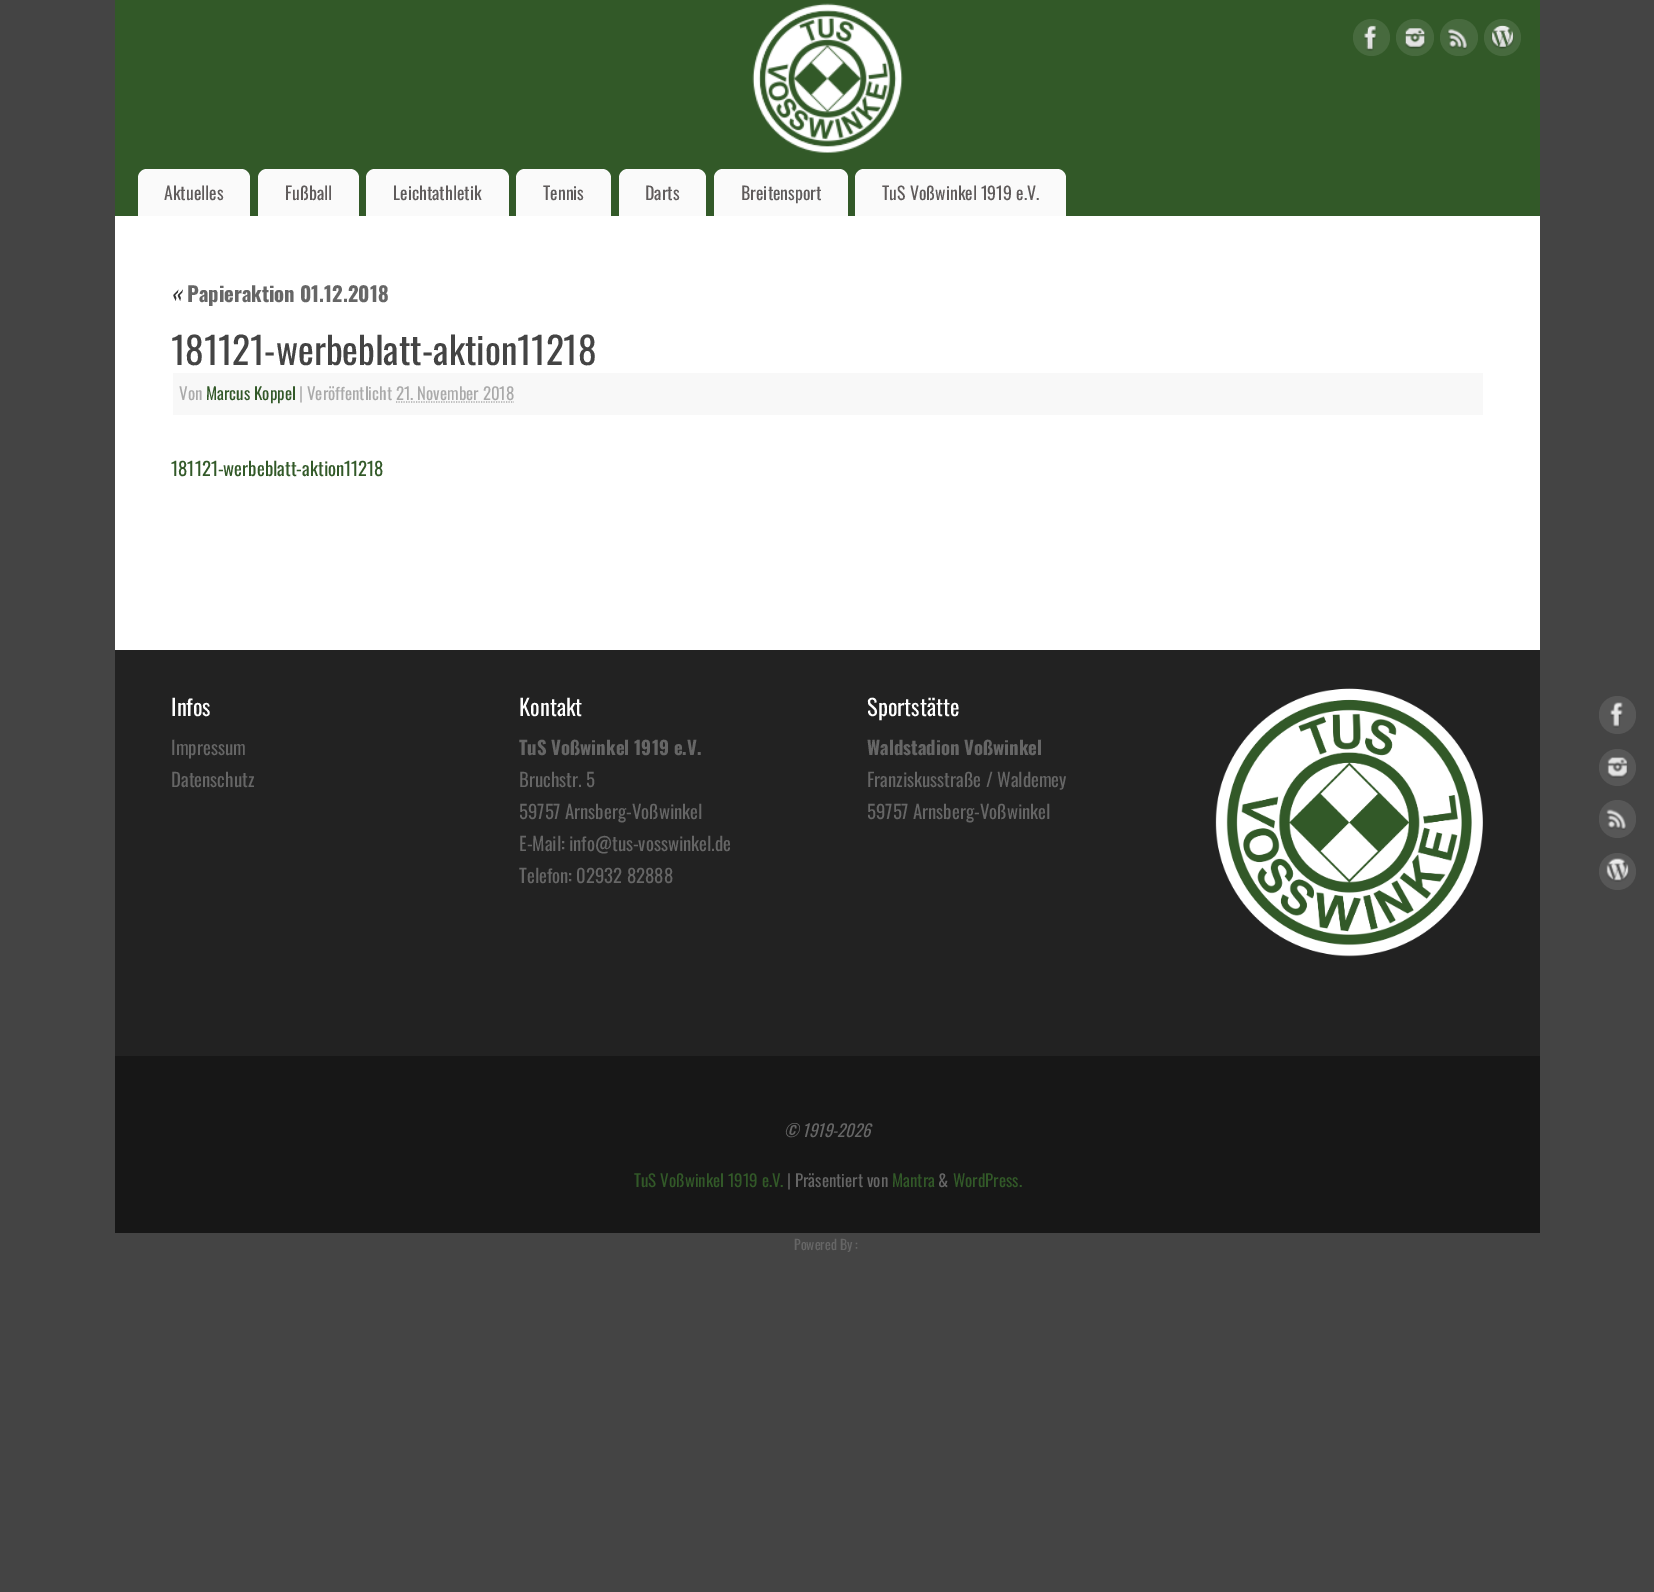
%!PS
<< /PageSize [1654 1592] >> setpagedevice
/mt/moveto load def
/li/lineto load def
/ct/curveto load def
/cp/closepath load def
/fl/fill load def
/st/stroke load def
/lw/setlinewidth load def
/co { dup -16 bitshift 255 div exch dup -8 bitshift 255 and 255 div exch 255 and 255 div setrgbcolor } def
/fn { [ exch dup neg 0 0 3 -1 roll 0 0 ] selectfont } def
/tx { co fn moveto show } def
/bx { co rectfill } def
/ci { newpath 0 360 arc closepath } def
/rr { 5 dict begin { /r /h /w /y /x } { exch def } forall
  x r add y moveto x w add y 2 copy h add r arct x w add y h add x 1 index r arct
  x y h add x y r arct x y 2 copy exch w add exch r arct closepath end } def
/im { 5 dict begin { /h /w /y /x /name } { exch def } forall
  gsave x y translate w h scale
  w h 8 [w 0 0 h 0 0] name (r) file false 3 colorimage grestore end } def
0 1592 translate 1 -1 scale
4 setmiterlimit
0 0 1654 1592 16#444444 bx
115 0 1425 216 16#325928 bx
(media/1.raw) 752 3 151 150 im
16#476A3E co
1371.5 37.5 18.5 ci fl
(media/2.raw) 1364 25 13 26 im
1396 19 38 37 18.5 rr fl
(media/3.raw) 1405 28 21 21 im
1440 19 38 37 18.5 rr fl
(media/4.raw) 1447 29 21 21 im
1502.5 37.5 18.5 ci fl
(media/5.raw) 1491 25 23 24 im
16#FAFAFA co
147 169 mt 241 169 li 246 169 250 173 250 178 ct 250 216 li 138 216 li 138 178 li 138 173 142 169 147 169 ct cp fl
267 169 mt 350 169 li 355 169 359 173 359 178 ct 359 216 li 258 216 li 258 178 li 258 173 262 169 267 169 ct cp fl
375 169 mt 500 169 li 505 169 509 173 509 178 ct 509 216 li 366 216 li 366 178 li 366 173 370 169 375 169 ct cp fl
525 169 mt 602 169 li 607 169 611 173 611 178 ct 611 216 li 516 216 li 516 178 li 516 173 520 169 525 169 ct cp fl
628 169 mt 697 169 li 702 169 706 173 706 178 ct 706 216 li 619 216 li 619 178 li 619 173 623 169 628 169 ct cp fl
723 169 mt 839 169 li 844 169 848 173 848 178 ct 848 216 li 714 216 li 714 178 li 714 173 718 169 723 169 ct cp fl
864 169 mt 1057 169 li 1062 169 1066 173 1066 178 ct 1066 216 li 855 216 li 855 178 li 855 173 859 169 864 169 ct cp fl
115 216 1425 434 16#FFFFFF bx
173 373 1310 42 16#F8F8F8 bx
16#AAAAAA co
1.2 lw
[1.25 1.25] 0 setdash
396 402 mt 514 402 li st
16#575757 co
1599 696 37 38 18.5 rr fl
(media/6.raw) 1610 702 13 26 im
1617.5 767.5 18.5 ci fl
(media/7.raw) 1607 757 21 21 im
1599 800 37 38 18.5 rr fl
(media/8.raw) 1606 809 20 21 im
1617.5 871.5 18.5 ci fl
(media/9.raw) 1606 858 23 24 im
115 650 1425 406 16#222222 bx
(media/10.raw) 1215 688 268 269 im
115 1056 1425 177 16#171717 bx
(Aktuelles) 164 200 /Oswald-Regular 17.75 16#5F5B5B tx
(Fußball) 285 200 /Oswald-Regular 17.75 16#5F5B5B tx
(Leichtathletik) 393 200 /Oswald-Regular 17.75 16#5F5B5B tx
(Tennis) 543 200 /Oswald-Regular 17.75 16#5F5B5B tx
(Darts) 645 200 /Oswald-Regular 17.75 16#5F5B5B tx
(Breitensport) 741 200 /Oswald-Regular 17.75 16#5F5B5B tx
(TuS Voßwinkel 1919 e.V.) 882 200 /Oswald-Regular 17.75 16#5F5B5B tx
(«) 171 302 /Oswald-Italic 23 16#333333 tx
(Papieraktion 01.12.2018) 187 302 /Oswald-Bold 20.6 16#666666 tx
(181121-werbeblatt-aktion11218) 171 365 /Oswald-Regular 37.5 16#444444 tx
(Von) 179 400 /Oswald-Regular 16.9 16#AAAAAA tx
(Marcus Koppel) 206 400 /Oswald-Regular 16.9 16#325928 tx
(| Veröffentlicht 21. November 2018) 299 400 /Oswald-Regular 16.9 16#AAAAAA tx
(181121-werbeblatt-aktion11218) 171 476 /Oswald-Regular 18.75 16#325928 tx
(Infos) 171 716 /Oswald-Regular 22.5 16#FFFFFF tx
(Impressum) 171 755 /Oswald-Regular 18.75 16#666666 tx
(Datenschutz) 171 787 /Oswald-Regular 18.75 16#666666 tx
(Kontakt) 519 716 /Oswald-Regular 22.5 16#FFFFFF tx
(TuS Voßwinkel 1919 e.V.) 519 755 /Oswald-Bold 18.75 16#666666 tx
(Bruchstr. 5) 519 787 /Oswald-Regular 18.75 16#666666 tx
(59757 Arnsberg-Voßwinkel) 519 819 /Oswald-Regular 18.75 16#666666 tx
(E-Mail: info@tus-vosswinkel.de) 519 851 /Oswald-Regular 18.75 16#666666 tx
(Telefon: 02932 82888) 519 883 /Oswald-Regular 18.75 16#666666 tx
(Sportstätte) 867 716 /Oswald-Regular 22.5 16#FFFFFF tx
(Waldstadion Voßwinkel) 867 755 /Oswald-Bold 18.75 16#666666 tx
(Franziskusstraße / Waldemey) 867 787 /Oswald-Regular 18.75 16#666666 tx
(59757 Arnsberg-Voßwinkel) 867 819 /Oswald-Regular 18.75 16#666666 tx
(© 1919-2026) 784 1137 /Oswald-Italic 16.9 16#666666 tx
(TuS Voßwinkel 1919 e.V.) 634 1187 /Oswald-Regular 16.9 16#325928 tx
(| Präsentiert von) 787 1187 /Oswald-Regular 16.9 16#666666 tx
(Mantra) 892 1187 /Oswald-Regular 16.9 16#325928 tx
(&) 938 1187 /Oswald-Regular 16.9 16#666666 tx
(WordPress.) 953 1187 /Oswald-Regular 16.9 16#325928 tx
(Powered By :) 794 1250 /Oswald-Regular 13.75 16#666666 tx
showpage
